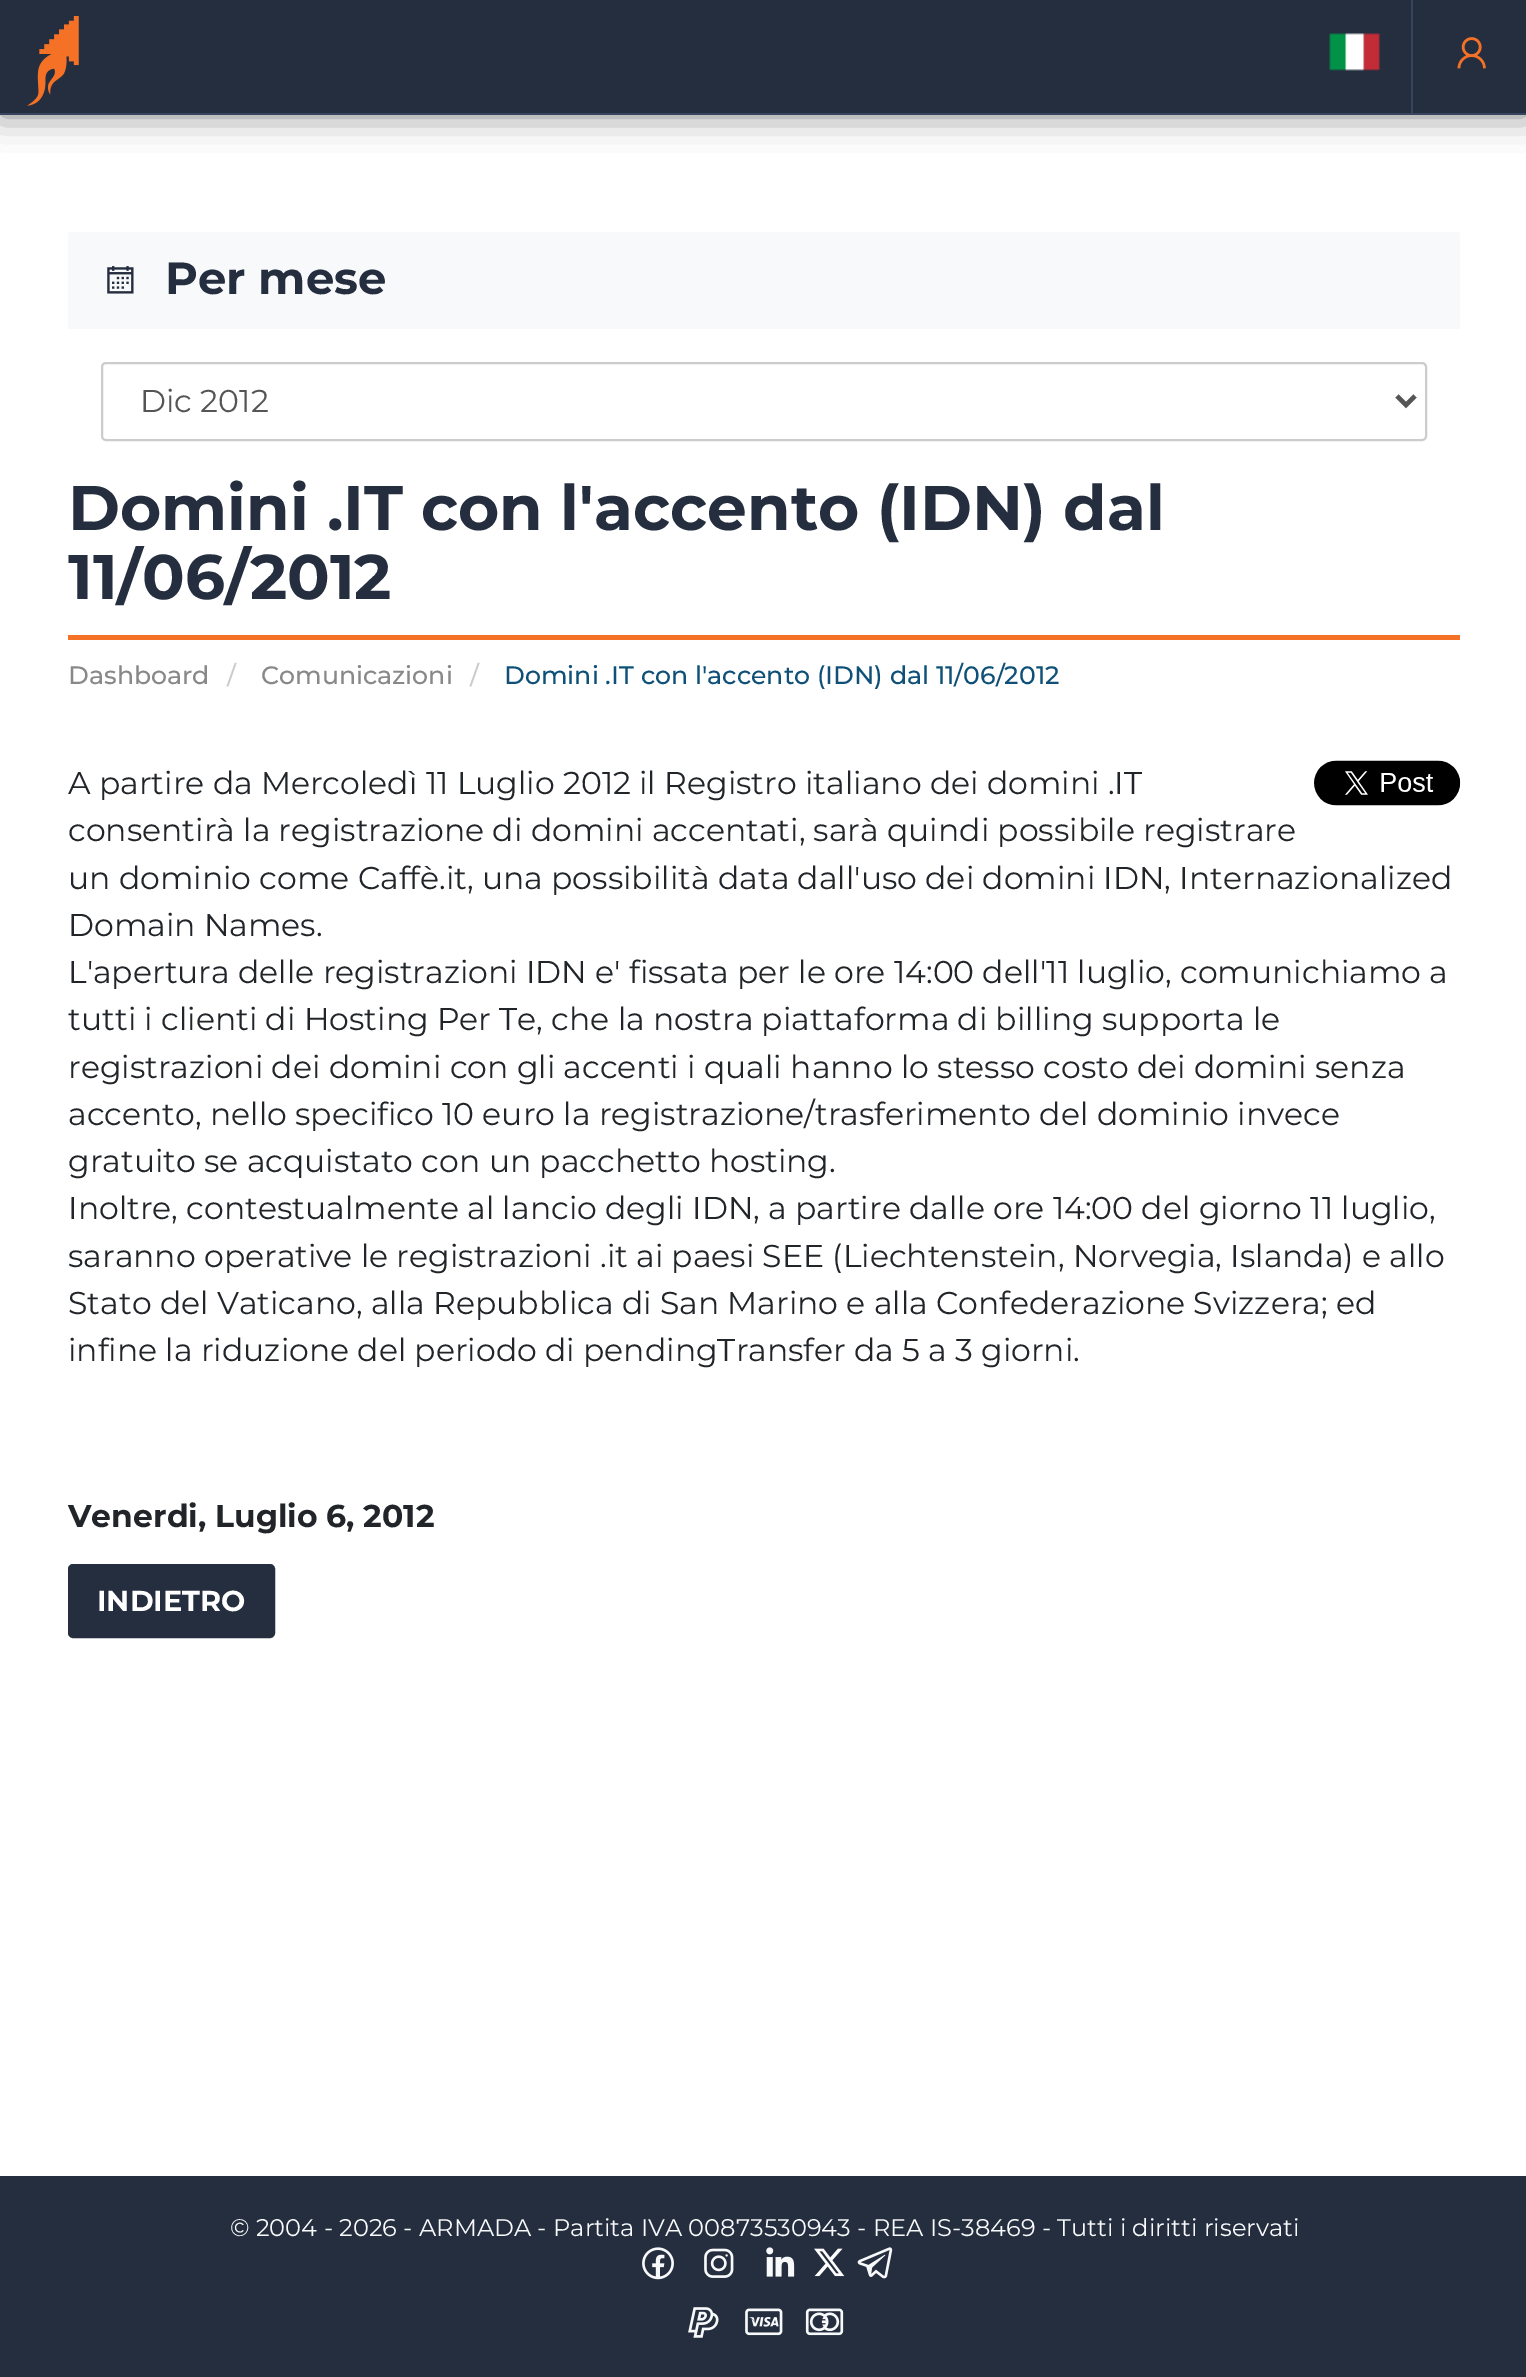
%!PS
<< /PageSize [1526 2377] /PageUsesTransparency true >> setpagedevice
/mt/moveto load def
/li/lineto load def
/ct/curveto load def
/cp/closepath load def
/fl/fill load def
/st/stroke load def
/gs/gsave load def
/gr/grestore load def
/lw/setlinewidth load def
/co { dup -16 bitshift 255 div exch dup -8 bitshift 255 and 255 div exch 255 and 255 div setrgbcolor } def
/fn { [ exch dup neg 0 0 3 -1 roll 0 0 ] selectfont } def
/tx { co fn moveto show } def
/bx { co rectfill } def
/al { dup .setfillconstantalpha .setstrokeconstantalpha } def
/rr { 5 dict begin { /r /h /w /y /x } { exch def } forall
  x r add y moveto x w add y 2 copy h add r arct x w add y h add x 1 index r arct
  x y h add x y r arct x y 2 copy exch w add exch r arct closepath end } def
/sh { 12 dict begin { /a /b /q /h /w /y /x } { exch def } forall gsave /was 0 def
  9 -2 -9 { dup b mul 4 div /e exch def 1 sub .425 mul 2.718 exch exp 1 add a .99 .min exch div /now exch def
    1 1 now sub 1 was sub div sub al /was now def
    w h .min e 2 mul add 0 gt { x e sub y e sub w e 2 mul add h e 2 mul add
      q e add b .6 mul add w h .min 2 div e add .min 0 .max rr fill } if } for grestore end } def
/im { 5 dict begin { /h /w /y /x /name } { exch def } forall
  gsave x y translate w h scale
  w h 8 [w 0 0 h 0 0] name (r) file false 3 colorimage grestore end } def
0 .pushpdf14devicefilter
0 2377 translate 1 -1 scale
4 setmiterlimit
0 0 1526 2377 16#FFFFFF bx
16#000000 co
0 0 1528 115 0 17 .5 sh
0 0 1526 113 16#252E3F bx
0 113 1526 2 16#38455F bx
(media/1.raw) 27 16 52 90 im
(media/2.raw) 1329 33 51 38 im
1411 0 2 113 16#38455F bx
(media/3.raw) 1457 37 29 32 im
16#F8F9FA co
70 232 mt 1458 232 li 1459 232 1460 233 1460 234 ct 1460 329 li 68 329 li 68 234 li 68 233 69 232 70 232 ct cp fl
(media/4.raw) 107 266 27 28 im
16#CCCCCC co
2 lw
102 363 1324 77 4 rr st
16#555555 co
4.5 lw
1397 396 mt 1406 405 li 1415 396 li st
68 635 1392 5 16#F47126 bx
(media/5.raw) 1314 760 147 46 im
16#252E3F co
69 1565 205 72 4 rr gs fl gr
2 lw
st
0 2176 1526 201 16#252E3F bx
(media/6.raw) 642 2247 32 33 im
(media/7.raw) 704 2248 30 30 im
(media/8.raw) 766 2247 29 30 im
(media/9.raw) 814 2248 31 29 im
(media/10.raw) 857 2247 36 32 im
(media/11.raw) 688 2307 31 31 im
(media/12.raw) 745 2308 38 28 im
(media/13.raw) 805 2308 39 28 im
(Per mese) 165 294 /Montserrat-Bold 45 16#252E3F tx
(Dic 2012) 140 412 /Montserrat-Regular 31.5 16#555555 tx
(Domini .IT con l'accento \(IDN\) dal) 68 530 /Montserrat-Bold 63 16#252E3F tx
(11/06/2012) 68 599 /Montserrat-Bold 63 16#252E3F tx
(Dashboard) 68 684 /Montserrat-Medium 25.2 16#888888 tx
(/) 227 684 /Montserrat-Medium 25.2 16#CCCCCC tx
(Comunicazioni) 261 684 /Montserrat-Medium 25.2 16#888888 tx
(/) 470 684 /Montserrat-Medium 25.2 16#CCCCCC tx
(Domini .IT con l'accento \(IDN\) dal 11/06/2012) 504 684 /Montserrat-Medium 25.2 16#0E5077 tx
(A partire da Mercoledì 11 Luglio 2012 il Registro italiano dei domini .IT) 68 794 /Montserrat-Regular 31.5 16#212529 tx
(consentirà la registrazione di domini accentati, sarà quindi possibile registrare) 68 841 /Montserrat-Regular 31.5 16#212529 tx
(un dominio come Caffè.it, una possibilità data dall'uso dei domini IDN, Internazionalized) 68 889 /Montserrat-Regular 31.5 16#212529 tx
(Domain Names.) 68 936 /Montserrat-Regular 31.5 16#212529 tx
(L'apertura delle registrazioni IDN e' fissata per le ore 14:00 dell'11 luglio, comunichiamo a) 68 983 /Montserrat-Regular 31.5 16#212529 tx
(tutti i clienti di Hosting Per Te, che la nostra piattaforma di billing supporta le) 68 1030 /Montserrat-Regular 31.5 16#212529 tx
(registrazioni dei domini con gli accenti i quali hanno lo stesso costo dei domini senza) 68 1078 /Montserrat-Regular 31.5 16#212529 tx
(accento, nello specifico 10 euro la registrazione/trasferimento del dominio invece) 68 1125 /Montserrat-Regular 31.5 16#212529 tx
(gratuito se acquistato con un pacchetto hosting.) 68 1172 /Montserrat-Regular 31.5 16#212529 tx
(Inoltre, contestualmente al lancio degli IDN, a partire dalle ore 14:00 del giorno 11 luglio,) 68 1219 /Montserrat-Regular 31.5 16#212529 tx
(saranno operative le registrazioni .it ai paesi SEE \(Liechtenstein, Norvegia, Islanda\) e allo) 68 1267 /Montserrat-Regular 31.5 16#212529 tx
(Stato del Vaticano, alla Repubblica di San Marino e alla Confederazione Svizzera; ed) 68 1314 /Montserrat-Regular 31.5 16#212529 tx
(infine la riduzione del periodo di pendingTransfer da 5 a 3 giorni.) 68 1361 /Montserrat-Regular 31.5 16#212529 tx
(Venerdi, Luglio 6, 2012) 68 1527 /Montserrat-Bold 31.5 16#212529 tx
(INDIETRO) 97 1611 /Montserrat-Bold 28.75 16#FFFFFF tx
(© 2004 - 2026 - ARMADA - Partita IVA 00873530943 - REA IS-38469 - Tutti i diritti riservati) 230 2236 /Montserrat-Regular 24.1 16#F8F9FA tx
.poppdf14devicefilter showpage
